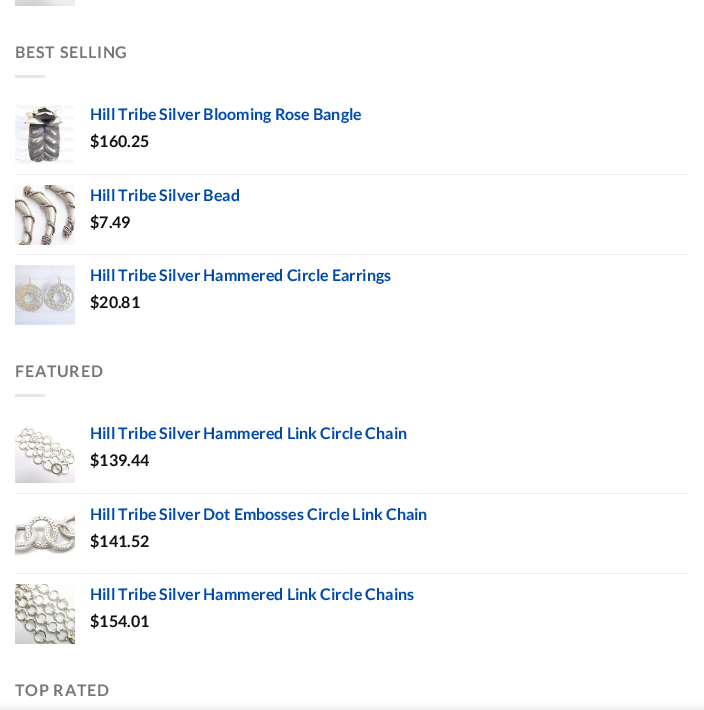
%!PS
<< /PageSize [704 710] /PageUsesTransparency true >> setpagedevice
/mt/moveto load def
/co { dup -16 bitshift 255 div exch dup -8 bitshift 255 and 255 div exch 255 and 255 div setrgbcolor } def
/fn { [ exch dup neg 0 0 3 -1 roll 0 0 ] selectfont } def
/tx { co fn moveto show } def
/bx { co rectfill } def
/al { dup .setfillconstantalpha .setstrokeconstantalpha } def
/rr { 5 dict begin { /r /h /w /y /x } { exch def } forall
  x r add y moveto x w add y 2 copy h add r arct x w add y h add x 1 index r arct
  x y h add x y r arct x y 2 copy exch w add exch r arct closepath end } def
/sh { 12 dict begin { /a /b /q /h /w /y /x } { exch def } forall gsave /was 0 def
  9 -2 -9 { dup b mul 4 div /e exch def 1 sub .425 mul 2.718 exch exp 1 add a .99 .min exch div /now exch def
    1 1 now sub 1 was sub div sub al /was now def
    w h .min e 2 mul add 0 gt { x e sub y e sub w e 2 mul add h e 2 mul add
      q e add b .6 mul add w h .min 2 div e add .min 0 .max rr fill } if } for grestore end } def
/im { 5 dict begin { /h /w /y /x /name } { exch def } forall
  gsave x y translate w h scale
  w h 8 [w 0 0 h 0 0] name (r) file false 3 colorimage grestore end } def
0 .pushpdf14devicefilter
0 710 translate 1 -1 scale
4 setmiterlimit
0 0 704 710 16#FFFFFF bx
(media/1.raw) 15 0 60 6 im
15 75 30 3 16#E6E6E6 bx
(media/2.raw) 15 104 59 60 im
15 174 674 1 16#ECECEC bx
(media/3.raw) 15 185 60 60 im
15 254 674 1 16#ECECEC bx
(media/4.raw) 15 265 60 60 im
15 394 30 3 16#E6E6E6 bx
(media/5.raw) 15 426 60 57 im
15 493 674 1 16#ECECEC bx
(media/6.raw) 15 513 60 43 im
15 573 674 1 16#ECECEC bx
(media/7.raw) 15 584 60 60 im
16#000000 co
0 710 704 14 0 4.5 .14 sh
/Lato-Bold 16 fn
16#777777 co
15 58 mt .75 0 (BEST SELLING) ashow
(Hill Tribe Silver Blooming Rose Bangle) 90 120 /Lato-Bold 16 16#004AAD tx
($160.25) 90 147 /Lato-Bold 16 16#111111 tx
(Hill Tribe Silver Bead) 90 201 /Lato-Bold 16 16#004AAD tx
($7.49) 90 228 /Lato-Bold 16 16#111111 tx
(Hill Tribe Silver Hammered Circle Earrings) 90 281 /Lato-Bold 16 16#004AAD tx
($20.81) 90 308 /Lato-Bold 16 16#111111 tx
16#777777 co
15 377 mt .75 0 (FEATURED) ashow
(Hill Tribe Silver Hammered Link Circle Chain) 90 439 /Lato-Bold 16 16#004AAD tx
($139.44) 90 466 /Lato-Bold 16 16#111111 tx
(Hill Tribe Silver Dot Embosses Circle Link Chain) 90 520 /Lato-Bold 16 16#004AAD tx
($141.52) 90 547 /Lato-Bold 16 16#111111 tx
(Hill Tribe Silver Hammered Link Circle Chains) 90 600 /Lato-Bold 16 16#004AAD tx
($154.01) 90 627 /Lato-Bold 16 16#111111 tx
16#777777 co
15 696 mt .75 0 (TOP RATED) ashow
.poppdf14devicefilter showpage
